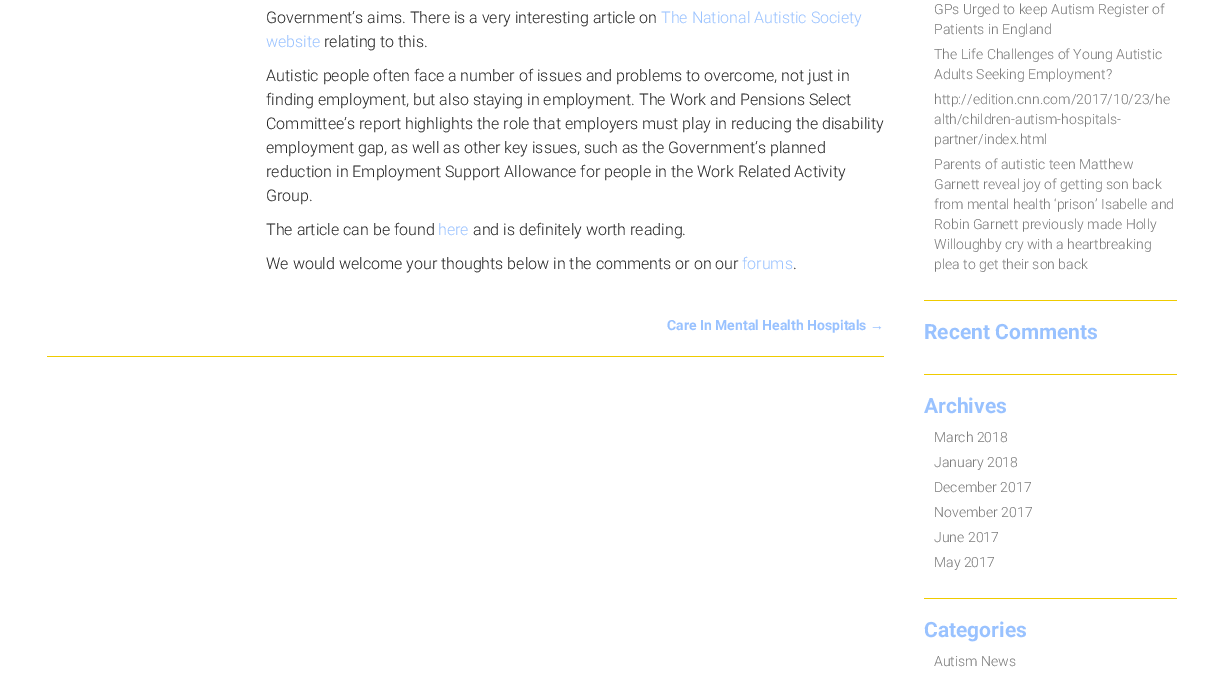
%!PS
<< /PageSize [1223 675] >> setpagedevice
/co { dup -16 bitshift 255 div exch dup -8 bitshift 255 and 255 div exch 255 and 255 div setrgbcolor } def
/fn { [ exch dup neg 0 0 3 -1 roll 0 0 ] selectfont } def
/tx { co fn moveto show } def
/bx { co rectfill } def
0 675 translate 1 -1 scale
4 setmiterlimit
0 0 1223 675 16#FFFFFF bx
47 356 837 1 16#EFCB00 bx
924 300 253 1 16#EFCB00 bx
924 374 253 1 16#EFCB00 bx
924 598 253 1 16#EFCB00 bx
(Government’s aims. There is a very interesting article on) 266 23 /Roboto-Light 16 16#222222 tx
(The National Autistic Society) 661 23 /Roboto-Light 16 16#99C2FF tx
(website) 266 47 /Roboto-Light 16 16#99C2FF tx
(relating to this.) 324 47 /Roboto-Light 16 16#222222 tx
(Autistic people often face a number of issues and problems to overcome, not just in) 266 81 /Roboto-Light 16 16#222222 tx
(finding employment, but also staying in employment. The Work and Pensions Select) 266 105 /Roboto-Light 16 16#222222 tx
(Committee’s report highlights the role that employers must play in reducing the disability) 266 129 /Roboto-Light 16 16#222222 tx
(employment gap, as well as other key issues, such as the Government’s planned) 266 153 /Roboto-Light 16 16#222222 tx
(reduction in Employment Support Allowance for people in the Work Related Activity) 266 177 /Roboto-Light 16 16#222222 tx
(Group.) 266 201 /Roboto-Light 16 16#222222 tx
(The article can be found) 266 235 /Roboto-Light 16 16#222222 tx
(here) 438 235 /Roboto-Light 16 16#99C2FF tx
(and is definitely worth reading.) 473 235 /Roboto-Light 16 16#222222 tx
(We would welcome your thoughts below in the comments or on our) 266 269 /Roboto-Light 16 16#222222 tx
(forums) 742 269 /Roboto-Light 16 16#99C2FF tx
(.) 793 269 /Roboto-Light 16 16#222222 tx
(Care In Mental Health Hospitals) 667 330 /Roboto-Bold 14 16#99C2FF tx
(→) 870 330 /LiberationSans-Bold 14 16#99C2FF tx
(GPs Urged to keep Autism Register of) 934 14 /Roboto-Light 14 16#787878 tx
(Patients in England) 934 34 /Roboto-Light 14 16#787878 tx
(The Life Challenges of Young Autistic) 934 59 /Roboto-Light 14 16#787878 tx
(Adults Seeking Employment?) 934 79 /Roboto-Light 14 16#787878 tx
(http://edition.cnn.com/2017/10/23/he) 934 104 /Roboto-Light 14 16#787878 tx
(alth/children-autism-hospitals-) 934 124 /Roboto-Light 14 16#787878 tx
(partner/index.html) 934 144 /Roboto-Light 14 16#787878 tx
(Parents of autistic teen Matthew) 934 169 /Roboto-Light 14 16#787878 tx
(Garnett reveal joy of getting son back) 934 189 /Roboto-Light 14 16#787878 tx
(from mental health ‘prison’ Isabelle and) 934 209 /Roboto-Light 14 16#787878 tx
(Robin Garnett previously made Holly) 934 229 /Roboto-Light 14 16#787878 tx
(Willoughby cry with a heartbreaking) 934 249 /Roboto-Light 14 16#787878 tx
(plea to get their son back) 934 269 /Roboto-Light 14 16#787878 tx
(Recent Comments) 924 339 /Roboto-Bold 21 16#99C2FF tx
(Archives) 924 413 /Roboto-Bold 21 16#99C2FF tx
(March 2018) 934 442 /Roboto-Light 14 16#787878 tx
(January 2018) 934 467 /Roboto-Light 14 16#787878 tx
(December 2017) 934 492 /Roboto-Light 14 16#787878 tx
(November 2017) 934 517 /Roboto-Light 14 16#787878 tx
(June 2017) 934 542 /Roboto-Light 14 16#787878 tx
(May 2017) 934 567 /Roboto-Light 14 16#787878 tx
(Categories) 924 637 /Roboto-Bold 21 16#99C2FF tx
(Autism News) 934 666 /Roboto-Light 14 16#787878 tx
showpage
